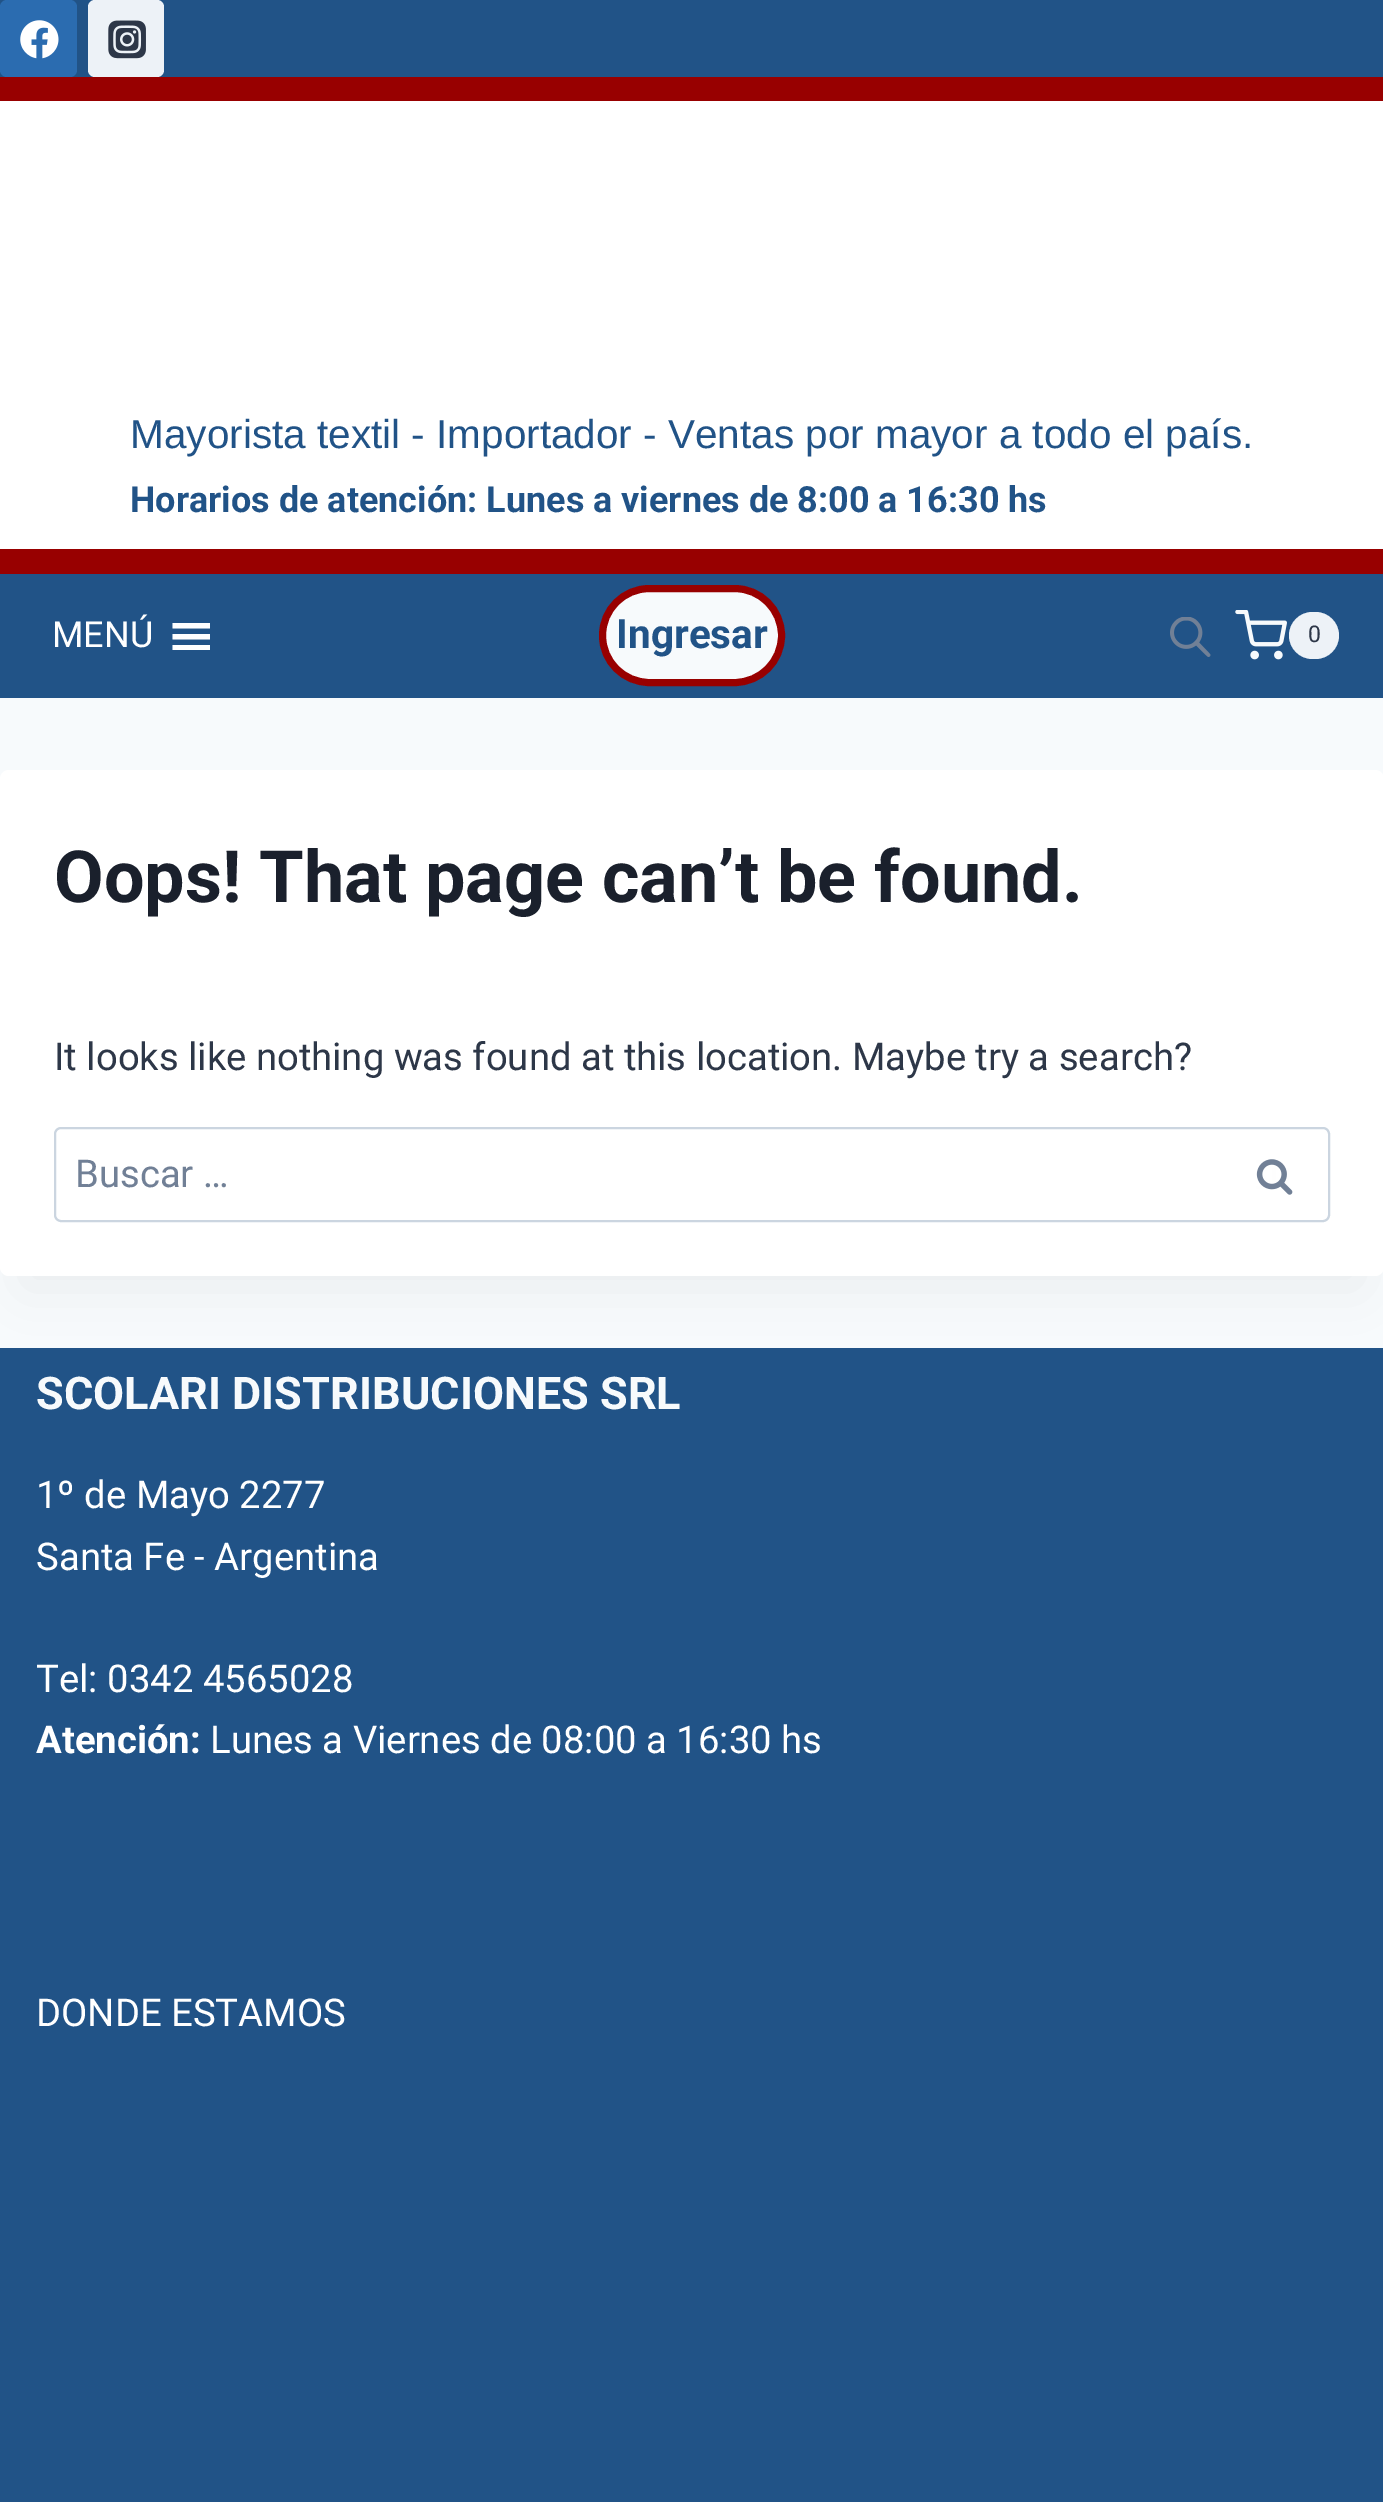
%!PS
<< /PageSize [1383 2502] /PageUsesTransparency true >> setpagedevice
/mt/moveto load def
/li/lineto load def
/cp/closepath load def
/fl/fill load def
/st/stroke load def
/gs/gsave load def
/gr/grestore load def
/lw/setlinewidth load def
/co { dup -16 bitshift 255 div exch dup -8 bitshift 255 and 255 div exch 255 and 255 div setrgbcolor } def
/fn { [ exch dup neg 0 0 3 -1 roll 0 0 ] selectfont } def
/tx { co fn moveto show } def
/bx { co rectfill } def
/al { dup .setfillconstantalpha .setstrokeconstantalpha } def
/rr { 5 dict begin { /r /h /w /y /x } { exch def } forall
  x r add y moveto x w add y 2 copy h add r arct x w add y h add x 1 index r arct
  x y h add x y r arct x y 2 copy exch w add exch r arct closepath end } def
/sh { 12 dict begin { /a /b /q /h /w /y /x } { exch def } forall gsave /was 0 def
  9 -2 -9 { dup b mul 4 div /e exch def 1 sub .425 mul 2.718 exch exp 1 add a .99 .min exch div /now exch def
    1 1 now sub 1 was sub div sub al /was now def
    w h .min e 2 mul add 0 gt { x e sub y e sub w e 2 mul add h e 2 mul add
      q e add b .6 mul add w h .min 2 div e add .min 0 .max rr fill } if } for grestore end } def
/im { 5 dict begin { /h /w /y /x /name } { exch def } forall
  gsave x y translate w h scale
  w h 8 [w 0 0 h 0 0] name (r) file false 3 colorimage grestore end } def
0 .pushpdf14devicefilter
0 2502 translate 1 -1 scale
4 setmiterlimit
0 0 1383 2502 16#F7FAFC bx
0 0 1383 77 16#215387 bx
16#2B6CB0 co
0 0 77 77 7 rr fl
(media/1.raw) 20 20 39 39 im
16#EDF2F7 co
88 0 76 77 7 rr fl
(media/2.raw) 108 20 38 39 im
0 101 1383 448 16#FFFFFF bx
0 77 1383 24 16#980000 bx
0 549 1383 25 16#980000 bx
0 574 1383 124 16#215387 bx
16#FFFFFF co
172.5 650 mt 210 650 li 210 645 li 172.5 645 li cp 172.5 623 mt 172.5 628.5 li 210 628.5 li 210 623 li cp 172.5 639.5 mt 210 639.5 li 210 634 li 172.5 634 li cp fl
16#F7FAFC co
602.5 588.5 179 94 47 rr gs fl gr
16#980000 co
7 lw
st
(media/3.raw) 1170 617 41 40 im
(media/4.raw) 1235 610 52 50 im
16#EDF2F7 co
1289 612 50 47 23.5 rr fl
0 1348 1383 1154 16#215387 bx
16#000000 co
23 826 1338 461 0 28 .05 sh
16#FFFFFF co
0 770 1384 506 9 rr fl
16#CBD5E0 co
2 lw
55 1128 1274 93 6 rr st
(media/5.raw) 1256 1159 37 36 im
(Mayorista textil - Importador - Ventas por mayor a todo el país.) 130 448 /LiberationSans-Regular 40.5 16#215387 tx
(Horarios de atención: Lunes a viernes de 8:00 a 16:30 hs) 130 512 /Roboto-Bold 36 16#215387 tx
(MENÚ) 52 647 /Roboto-Regular 36 16#FFFFFF tx
(Ingresar) 616 648 /Roboto-Bold 40.5 16#215387 tx
(0) 1308 642 /Roboto-Regular 23 16#2D3748 tx
(Oops! That page can’t be found.) 54 902 /Roboto-Bold 72 16#1A202C tx
(It looks like nothing was found at this location. Maybe try a search?) 54 1070 /Roboto-Regular 38.25 16#2D3748 tx
(Buscar …) 75 1187 /Roboto-Regular 38.25 16#718096 tx
(SCOLARI DISTRIBUCIONES SRL) 36 1409 /Roboto-Bold 45 16#F7FAFC tx
(1º de Mayo 2277) 36 1508 /Roboto-Regular 38.25 16#FFFFFF tx
(Santa Fe - Argentina) 36 1570 /Roboto-Regular 38.25 16#FFFFFF tx
(Tel: 0342 4565028) 36 1692 /Roboto-Regular 38.25 16#FFFFFF tx
(Atención:) 36 1753 /Roboto-Bold 38.25 16#FFFFFF tx
(Lunes a Viernes de 08:00 a 16:30 hs) 210 1753 /Roboto-Regular 38.25 16#FFFFFF tx
(DONDE ESTAMOS) 36 2026 /Roboto-Regular 38.25 16#FFFFFF tx
.poppdf14devicefilter showpage
